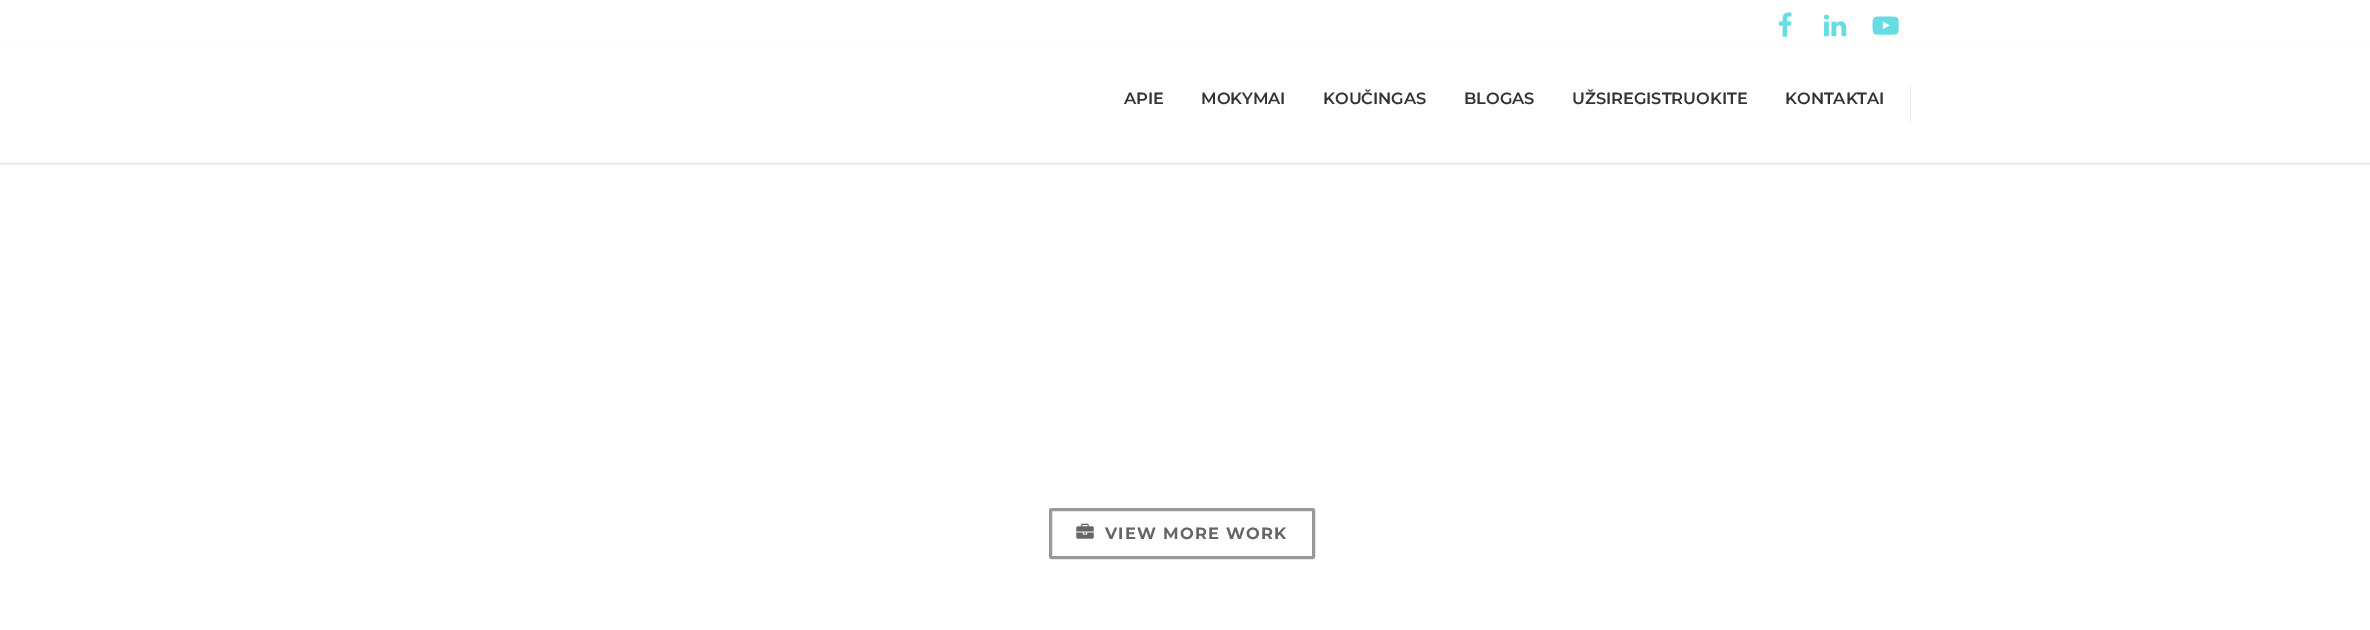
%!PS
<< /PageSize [2370 630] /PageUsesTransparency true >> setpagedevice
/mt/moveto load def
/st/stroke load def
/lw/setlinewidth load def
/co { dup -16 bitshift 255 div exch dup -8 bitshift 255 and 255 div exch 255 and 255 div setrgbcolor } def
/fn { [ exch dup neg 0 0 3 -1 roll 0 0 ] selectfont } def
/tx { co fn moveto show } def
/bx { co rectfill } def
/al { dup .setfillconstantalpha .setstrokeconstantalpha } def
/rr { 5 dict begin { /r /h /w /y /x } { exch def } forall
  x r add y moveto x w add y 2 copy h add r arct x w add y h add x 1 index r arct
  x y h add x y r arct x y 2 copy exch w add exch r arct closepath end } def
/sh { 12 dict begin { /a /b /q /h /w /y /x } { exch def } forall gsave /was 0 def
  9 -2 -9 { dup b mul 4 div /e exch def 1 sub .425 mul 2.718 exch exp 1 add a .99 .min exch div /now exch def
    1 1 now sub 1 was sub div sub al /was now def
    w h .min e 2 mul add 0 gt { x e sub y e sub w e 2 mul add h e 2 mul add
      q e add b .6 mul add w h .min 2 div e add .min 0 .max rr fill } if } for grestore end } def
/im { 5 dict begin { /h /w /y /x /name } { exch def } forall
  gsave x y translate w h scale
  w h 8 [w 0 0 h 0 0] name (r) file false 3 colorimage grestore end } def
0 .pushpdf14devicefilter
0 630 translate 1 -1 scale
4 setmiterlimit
0 0 2370 630 16#FFFFFF bx
(media/1.raw) 1778 12 14 25 im
(media/2.raw) 1823 14 24 23 im
(media/3.raw) 1872 16 27 19 im
16#000000 co
-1 49 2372 115 0 1 .16 sh
0 48 2370 115 16#FFFFFF bx
1910 85 1 38 16#EFEFEF bx
16#999999 co
3 lw
1050.5 509.5 263 48 1 rr st
(media/4.raw) 1076 523 18 16 im
(APIE) 1124 104 /Montserrat-SemiBold 16.25 16#333333 tx
(MOKYMAI) 1201 104 /Montserrat-SemiBold 16.25 16#333333 tx
(KOUČINGAS) 1323 104 /Montserrat-SemiBold 16.25 16#333333 tx
(BLOGAS) 1464 104 /Montserrat-SemiBold 16.25 16#333333 tx
(UŽSIREGISTRUOKITE) 1572 104 /Montserrat-SemiBold 16.25 16#333333 tx
(KONTAKTAI) 1785 104 /Montserrat-SemiBold 16.25 16#333333 tx
/Montserrat-Bold 16.25 fn
16#666666 co
1105 539 mt 1.25 0 (VIEW MORE WORK) ashow
.poppdf14devicefilter showpage
